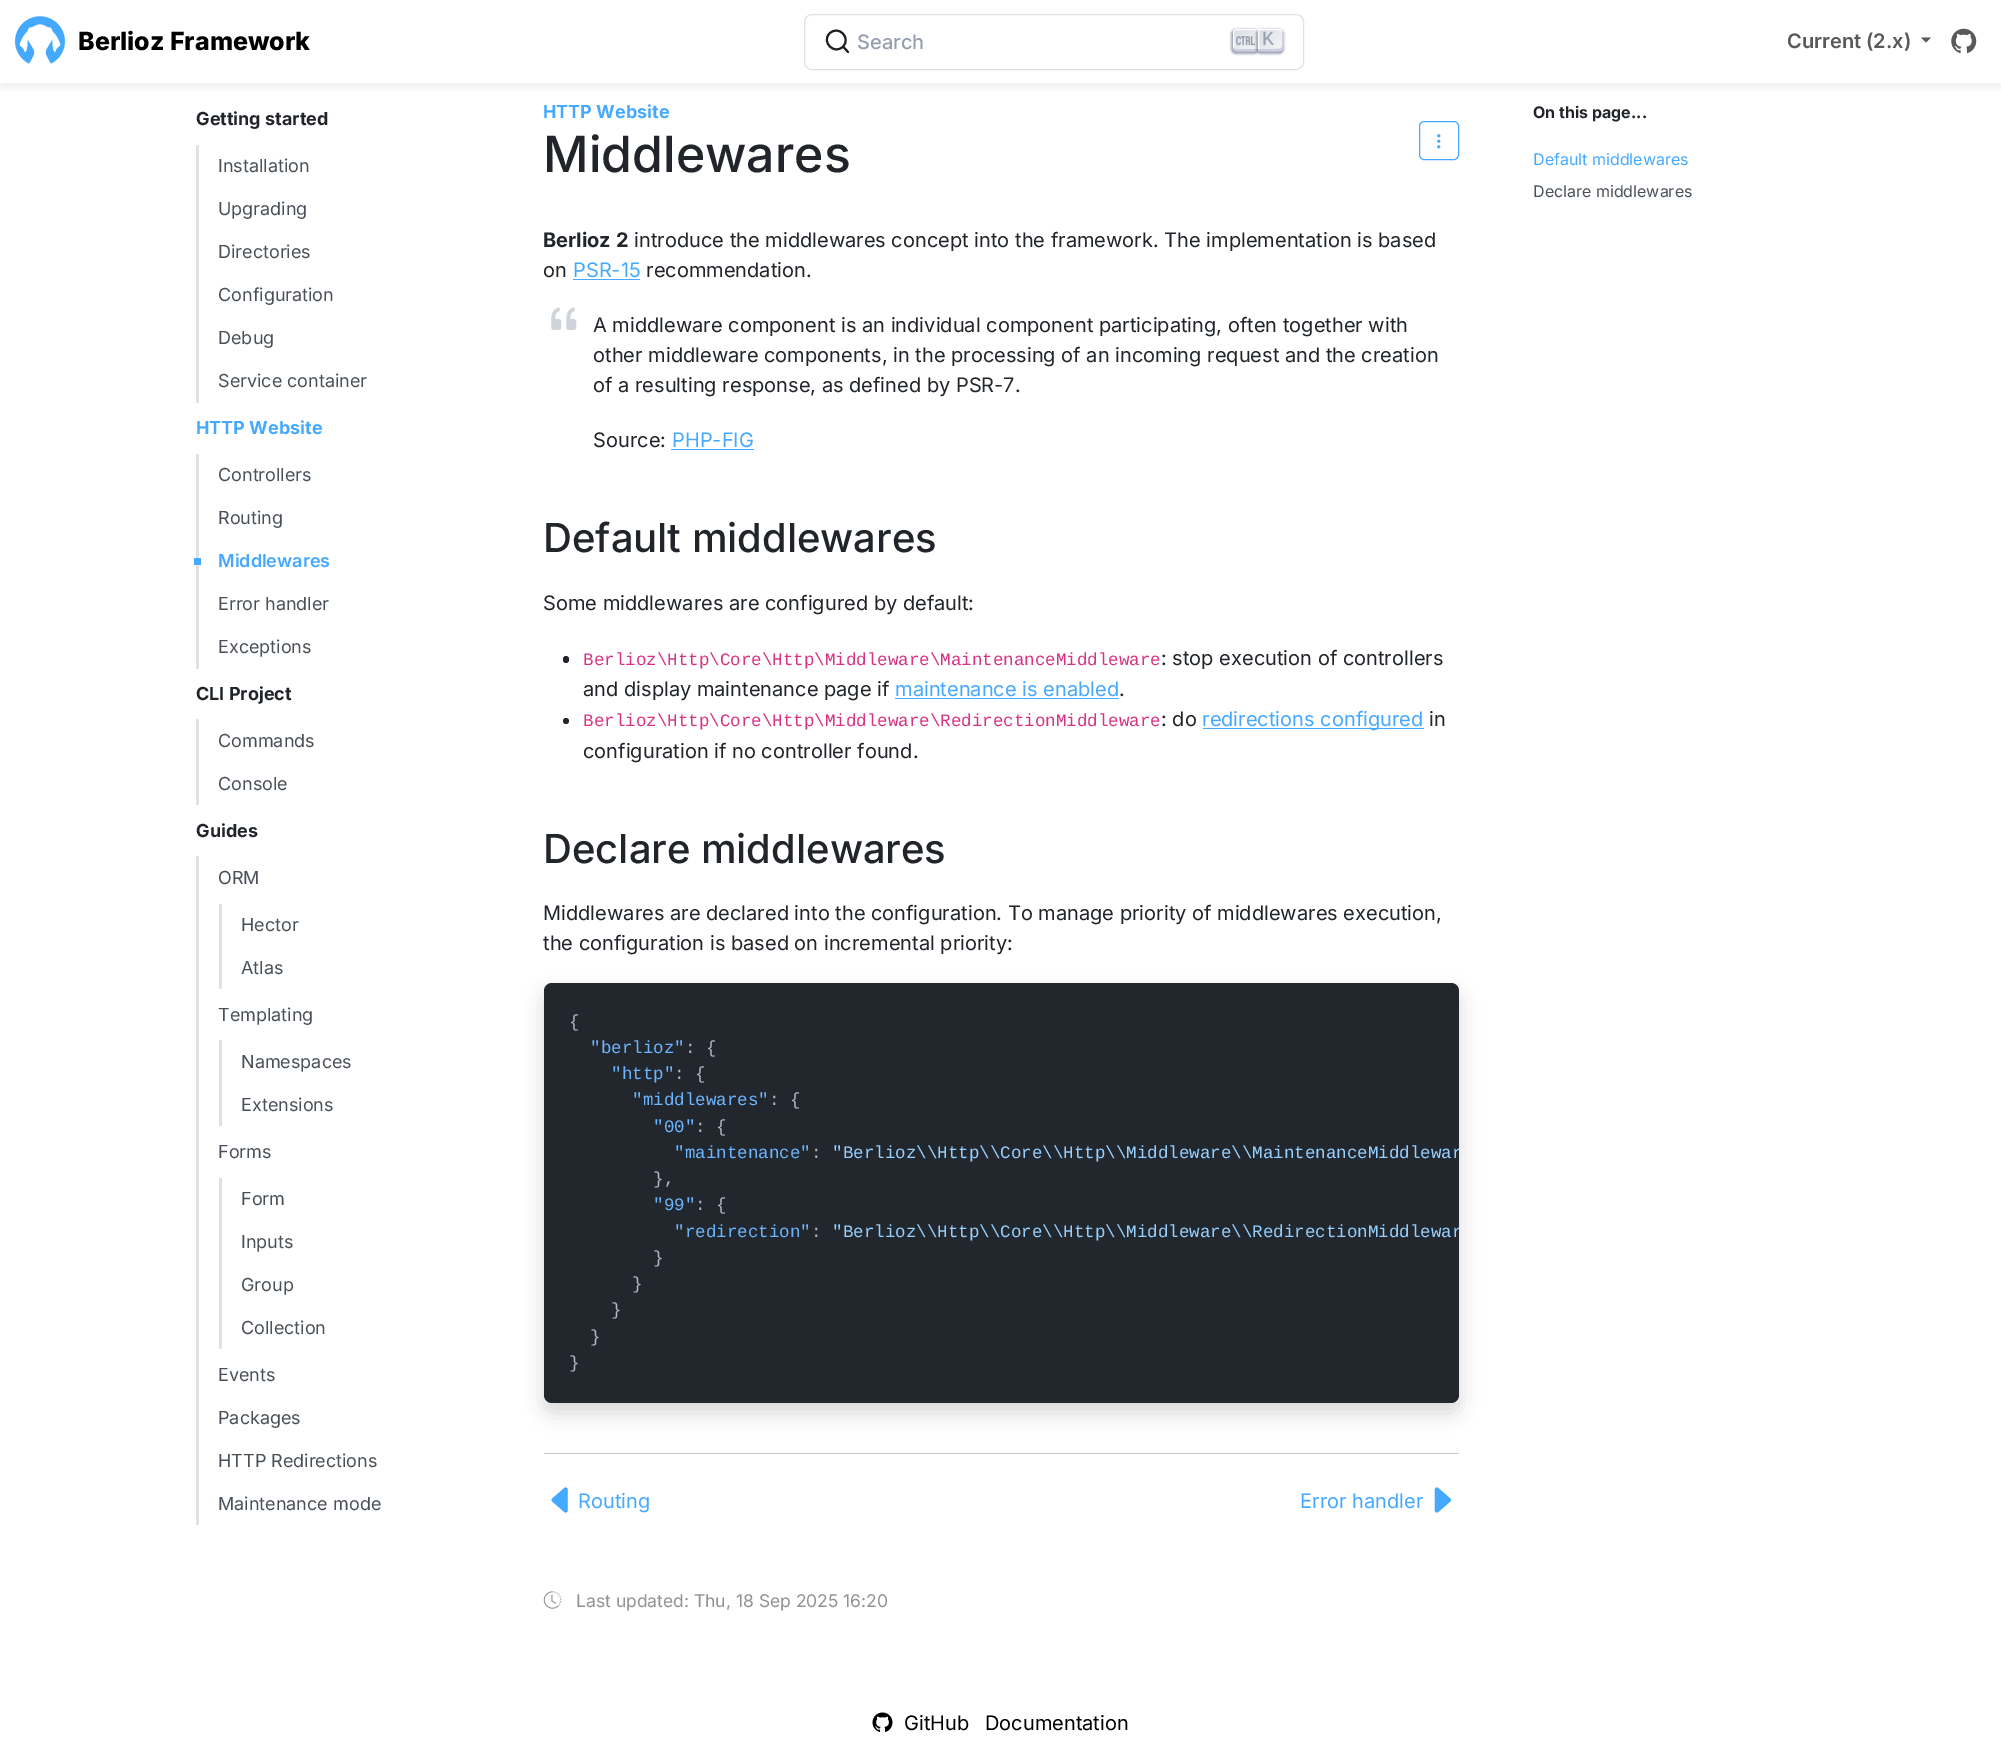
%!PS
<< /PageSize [2001 1738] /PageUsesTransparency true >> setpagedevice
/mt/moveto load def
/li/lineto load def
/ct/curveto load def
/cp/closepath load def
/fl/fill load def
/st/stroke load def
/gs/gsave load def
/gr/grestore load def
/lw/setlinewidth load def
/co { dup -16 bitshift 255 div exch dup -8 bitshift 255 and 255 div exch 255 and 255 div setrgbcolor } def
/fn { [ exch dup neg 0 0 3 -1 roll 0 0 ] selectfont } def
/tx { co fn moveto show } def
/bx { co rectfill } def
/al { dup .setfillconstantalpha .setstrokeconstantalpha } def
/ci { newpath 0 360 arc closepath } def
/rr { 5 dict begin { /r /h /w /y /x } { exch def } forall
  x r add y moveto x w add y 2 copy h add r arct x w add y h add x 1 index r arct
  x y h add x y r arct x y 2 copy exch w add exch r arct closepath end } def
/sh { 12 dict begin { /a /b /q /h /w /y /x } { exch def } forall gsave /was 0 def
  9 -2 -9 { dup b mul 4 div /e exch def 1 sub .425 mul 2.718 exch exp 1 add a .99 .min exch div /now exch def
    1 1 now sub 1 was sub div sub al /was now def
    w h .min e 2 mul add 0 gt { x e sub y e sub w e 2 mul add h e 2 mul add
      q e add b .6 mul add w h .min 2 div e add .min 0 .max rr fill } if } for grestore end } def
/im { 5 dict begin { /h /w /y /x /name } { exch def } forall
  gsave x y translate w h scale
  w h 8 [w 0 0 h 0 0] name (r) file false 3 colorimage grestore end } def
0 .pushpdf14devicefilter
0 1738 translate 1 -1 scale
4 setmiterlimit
0 0 2001 1738 16#FFFFFF bx
gs
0 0 mt 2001 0 li 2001 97 li 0 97 li cp 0 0 mt 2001 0 li 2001 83 li 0 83 li cp eoclip newpath
16#000000 co
0 5 2001 83 0 2.5 .05 sh
gr
0.95 al
0 82 2001 1 16#FFFFFF bx
1 al
(media/1.raw) 15 16 50 48 im
16#DEE2E6 co
804.5 14.5 499 55 7.5 rr st
16#1C1E21 co
2 lw
1 setlinecap
1 setlinejoin
843 46.5 mt 848 52 li 843 46.5 li 834.5 55.5 821 42 829.5 33.5 ct 838.5 24.5 851.5 38 843 46.5 ct cp st
16#1E235A co
1231 29 28 25 5 1 .4 sh
gs 1237 29.5 mt 1257.5 29.5 li 1257.5 50.5 li 1237 50.5 li 1235 50.5 1233.5 49 1233.5 47 ct 1233.5 33 li 1233.5 31 1235 29.5 1237 29.5 ct cp clip newpath
<< /ShadingType 2 /ColorSpace /DeviceRGB /Coords [1233 28 1257 52] /Extend [true true] /Function << /FunctionType 2 /Domain [0 1] /C0 [.835 .859 .894] /C1 [.973 .973 .973] /N 1 >> >> shfill gr
16#FFFFFF co
1 lw
0 setlinecap
0 setlinejoin
1237 29.5 mt 1257.5 29.5 li 1257.5 50.5 li 1237 50.5 li 1235 50.5 1233.5 49 1233.5 47 ct 1233.5 33 li 1233.5 31 1235 29.5 1237 29.5 ct cp st
16#CDCDE6 co
1233 47.5 mt 1233.5 49.5 1235 51 1237 51 ct 1258 51 li 1258 49 li 1236 49 li 1235 49 1234 48.5 1233 47.5 ct cp fl
(media/2.raw) 1236 36 19 10 im
16#1E235A co
1256 29 28 25 5 1 .4 sh
gs 1258.5 29.5 mt 1279 29.5 li 1281 29.5 1282.5 31 1282.5 33 ct 1282.5 47 li 1282.5 49 1281 50.5 1279 50.5 ct 1258.5 50.5 li cp clip newpath
<< /ShadingType 2 /ColorSpace /DeviceRGB /Coords [1258 28 1282 52] /Extend [true true] /Function << /FunctionType 2 /Domain [0 1] /C0 [.835 .859 .894] /C1 [.973 .973 .973] /N 1 >> >> shfill gr
16#FFFFFF co
1258.5 29.5 mt 1279 29.5 li 1281 29.5 1282.5 31 1282.5 33 ct 1282.5 47 li 1282.5 49 1281 50.5 1279 50.5 ct 1258.5 50.5 li cp st
16#CDCDE6 co
1258 49 mt 1258 51 li 1279 51 li 1281 51 1283 49 1283 47 ct 1283 33 li 1283 32 1282.5 31 1282 30.5 ct 1282 45 li 1281.5 47.5 li 1281 48 1280 48.5 1279.5 48.5 ct 1277 49 1274.5 49 1272 49 ct cp fl
16#595959 co
1921 37.5 mt 1931 37.5 li 1926 42.5 li cp fl
(media/3.raw) 1951 28 26 26 im
196 145 3 258 16#DEE2E6 bx
196 454 3 215 16#DEE2E6 bx
194 558 7 7 16#45A9FF bx
196 719 3 86 16#DEE2E6 bx
196 856 3 669 16#DEE2E6 bx
219 904 3 85 16#DEE2E6 bx
219 1040 3 86 16#DEE2E6 bx
219 1178 3 171 16#DEE2E6 bx
16#45A9FF co
1419.5 121.5 39 38 4.5 rr st
(media/4.raw) 1437 134 4 15 im
573 279 67 1 16#45A9FF bx
(media/5.raw) 551 307 26 23 im
671 449 83 1 16#45A9FF bx
16#212529 co
563 656 6 7 3 rr fl
895 698 224 1 16#45A9FF bx
16#212529 co
566 721 3 ci fl
1203 728 221 1 16#45A9FF bx
16#000000 co
544 993 915 420 8 10 .15 sh
16#22272E co
544 983 915 420 8 rr fl
544 1453 915 1 16#C8C9CA bx
(media/6.raw) 551 1487 17 26 im
(media/7.raw) 1434 1487 17 26 im
(media/8.raw) 543 1591 19 18 im
(media/9.raw) 872 1712 21 20 im
(Berlioz Framework) 78 50 /Inter-ExtraBold 25 16#000000 tx
(Search) 857 49 /Inter-Medium 20 16#969FAF tx
(K) 1262 45 /LiberationMono-Regular 20 16#969FAF tx
(Current \(2.x\)) 1787 48 /Inter-SemiBold 20 16#595959 tx
(Getting started) 196 125 /Inter-Bold 18 16#212529 tx
(Installation) 218 172 /Inter-Regular 18 16#495057 tx
(Upgrading) 218 215 /Inter-Regular 18 16#495057 tx
(Directories) 218 258 /Inter-Regular 18 16#495057 tx
(Configuration) 218 301 /Inter-Regular 18 16#495057 tx
(Debug) 218 344 /Inter-Regular 18 16#495057 tx
(Service container) 218 387 /Inter-Regular 18 16#495057 tx
(HTTP Website) 196 434 /Inter-Bold 18 16#45A9FF tx
(Controllers) 218 481 /Inter-Regular 18 16#495057 tx
(Routing) 218 524 /Inter-Regular 18 16#495057 tx
(Middlewares) 218 567 /Inter-SemiBold 18 16#45A9FF tx
(Error handler) 218 610 /Inter-Regular 18 16#495057 tx
(Exceptions) 218 653 /Inter-Regular 18 16#495057 tx
(CLI Project) 196 700 /Inter-Bold 18 16#212529 tx
(Commands) 218 747 /Inter-Regular 18 16#495057 tx
(Console) 218 790 /Inter-Regular 18 16#495057 tx
(Guides) 196 837 /Inter-Bold 18 16#212529 tx
(ORM) 218 884 /Inter-Regular 18 16#495057 tx
(Hector) 241 931 /Inter-Regular 18 16#495057 tx
(Atlas) 241 974 /Inter-Regular 18 16#495057 tx
(Templating) 218 1021 /Inter-Regular 18 16#495057 tx
(Namespaces) 241 1068 /Inter-Regular 18 16#495057 tx
(Extensions) 241 1111 /Inter-Regular 18 16#495057 tx
(Forms) 218 1158 /Inter-Regular 18 16#495057 tx
(Form) 241 1205 /Inter-Regular 18 16#495057 tx
(Inputs) 241 1248 /Inter-Regular 18 16#495057 tx
(Group) 241 1291 /Inter-Regular 18 16#495057 tx
(Collection) 241 1334 /Inter-Regular 18 16#495057 tx
(Events) 218 1381 /Inter-Regular 18 16#495057 tx
(Packages) 218 1424 /Inter-Regular 18 16#495057 tx
(HTTP Redirections) 218 1467 /Inter-Regular 18 16#495057 tx
(Maintenance mode) 218 1510 /Inter-Regular 18 16#495057 tx
(HTTP Website) 543 118 /Inter-Bold 18 16#45A9FF tx
(Middlewares) 543 172 /Inter-Medium 50 16#212529 tx
(Berlioz 2) 543 247 /Inter-Bold 20 16#212529 tx
(introduce the middlewares concept into the framework. The implementation is based) 634 247 /Inter-Regular 20 16#212529 tx
(on) 543 277 /Inter-Regular 20 16#212529 tx
(PSR-15) 573 277 /Inter-Regular 20 16#45A9FF tx
(recommendation.) 646 277 /Inter-Regular 20 16#212529 tx
(A middleware component is an individual component participating, often together with) 593 332 /Inter-Regular 20 16#212529 tx
(other middleware components, in the processing of an incoming request and the creation) 593 362 /Inter-Regular 20 16#212529 tx
(of a resulting response, as defined by PSR-7.) 593 392 /Inter-Regular 20 16#212529 tx
(Source:) 593 447 /Inter-Regular 20 16#212529 tx
(PHP-FIG) 672 447 /Inter-Regular 20 16#45A9FF tx
(Default middlewares) 543 552 /Inter-Medium 40 16#212529 tx
(Some middlewares are configured by default:) 543 610 /Inter-Regular 20 16#212529 tx
(Berlioz\\Http\\Core\\Http\\Middleware\\MaintenanceMiddleware) 583 665 /LiberationMono-Regular 17.5 16#D63384 tx
(: stop execution of controllers) 1161 665 /Inter-Regular 20 16#212529 tx
(and display maintenance page if) 583 696 /Inter-Regular 20 16#212529 tx
(maintenance is enabled) 895 696 /Inter-Regular 20 16#45A9FF tx
(.) 1119 696 /Inter-Regular 20 16#212529 tx
(Berlioz\\Http\\Core\\Http\\Middleware\\RedirectionMiddleware) 583 726 /LiberationMono-Regular 17.5 16#D63384 tx
(: do) 1161 726 /Inter-Regular 20 16#212529 tx
(redirections configured) 1202 726 /Inter-Regular 20 16#45A9FF tx
(in) 1429 726 /Inter-Regular 20 16#212529 tx
(configuration if no controller found.) 583 758 /Inter-Regular 20 16#212529 tx
(Declare middlewares) 543 863 /Inter-Medium 40 16#212529 tx
(Middlewares are declared into the configuration. To manage priority of middlewares execution,) 543 920 /Inter-Regular 20 16#212529 tx
(the configuration is based on incremental priority:) 543 950 /Inter-Regular 20 16#212529 tx
({) 569 1027 /LiberationMono-Regular 17.5 16#ADBAC7 tx
("berlioz") 590 1053 /LiberationMono-Regular 17.5 16#6CB6FF tx
(: {) 685 1053 /LiberationMono-Regular 17.5 16#ADBAC7 tx
("http") 611 1079 /LiberationMono-Regular 17.5 16#6CB6FF tx
(: {) 674 1079 /LiberationMono-Regular 17.5 16#ADBAC7 tx
("middlewares") 632 1105 /LiberationMono-Regular 17.5 16#6CB6FF tx
(: {) 769 1105 /LiberationMono-Regular 17.5 16#ADBAC7 tx
("00") 653 1132 /LiberationMono-Regular 17.5 16#6CB6FF tx
(: {) 695 1132 /LiberationMono-Regular 17.5 16#ADBAC7 tx
("maintenance") 674 1158 /LiberationMono-Regular 17.5 16#6CB6FF tx
(:) 811 1158 /LiberationMono-Regular 17.5 16#ADBAC7 tx
gs
544 983 915 420 rectclip
("Berlioz\\\\Http\\\\Core\\\\Http\\\\Middleware\\\\MaintenanceMiddlewar) 832 1158 /LiberationMono-Regular 17.5 16#96D0FF tx
gr
(},) 653 1184 /LiberationMono-Regular 17.5 16#ADBAC7 tx
("99") 653 1210 /LiberationMono-Regular 17.5 16#6CB6FF tx
(: {) 695 1210 /LiberationMono-Regular 17.5 16#ADBAC7 tx
("redirection") 674 1237 /LiberationMono-Regular 17.5 16#6CB6FF tx
(:) 811 1237 /LiberationMono-Regular 17.5 16#ADBAC7 tx
gs
544 983 915 420 rectclip
("Berlioz\\\\Http\\\\Core\\\\Http\\\\Middleware\\\\RedirectionMiddlewar) 832 1237 /LiberationMono-Regular 17.5 16#96D0FF tx
gr
(}) 653 1263 /LiberationMono-Regular 17.5 16#ADBAC7 tx
(}) 632 1289 /LiberationMono-Regular 17.5 16#ADBAC7 tx
(}) 611 1315 /LiberationMono-Regular 17.5 16#ADBAC7 tx
(}) 590 1342 /LiberationMono-Regular 17.5 16#ADBAC7 tx
(}) 569 1368 /LiberationMono-Regular 17.5 16#ADBAC7 tx
(Routing) 578 1508 /Inter-Regular 20 16#45A9FF tx
(Error handler) 1300 1508 /Inter-Regular 20 16#45A9FF tx
(Last updated: Thu, 18 Sep 2025 16:20) 576 1607 /Inter-Regular 17.5 16#909294 tx
(On this page...) 1533 118 /Inter-Bold 16 16#212529 tx
(Default middlewares) 1533 165 /Inter-Regular 16 16#45A9FF tx
(Declare middlewares) 1533 197 /Inter-Regular 16 16#495057 tx
(GitHub) 904 1730 /Inter-Regular 20 16#000000 tx
(Documentation) 985 1730 /Inter-Regular 20 16#000000 tx
.poppdf14devicefilter showpage
